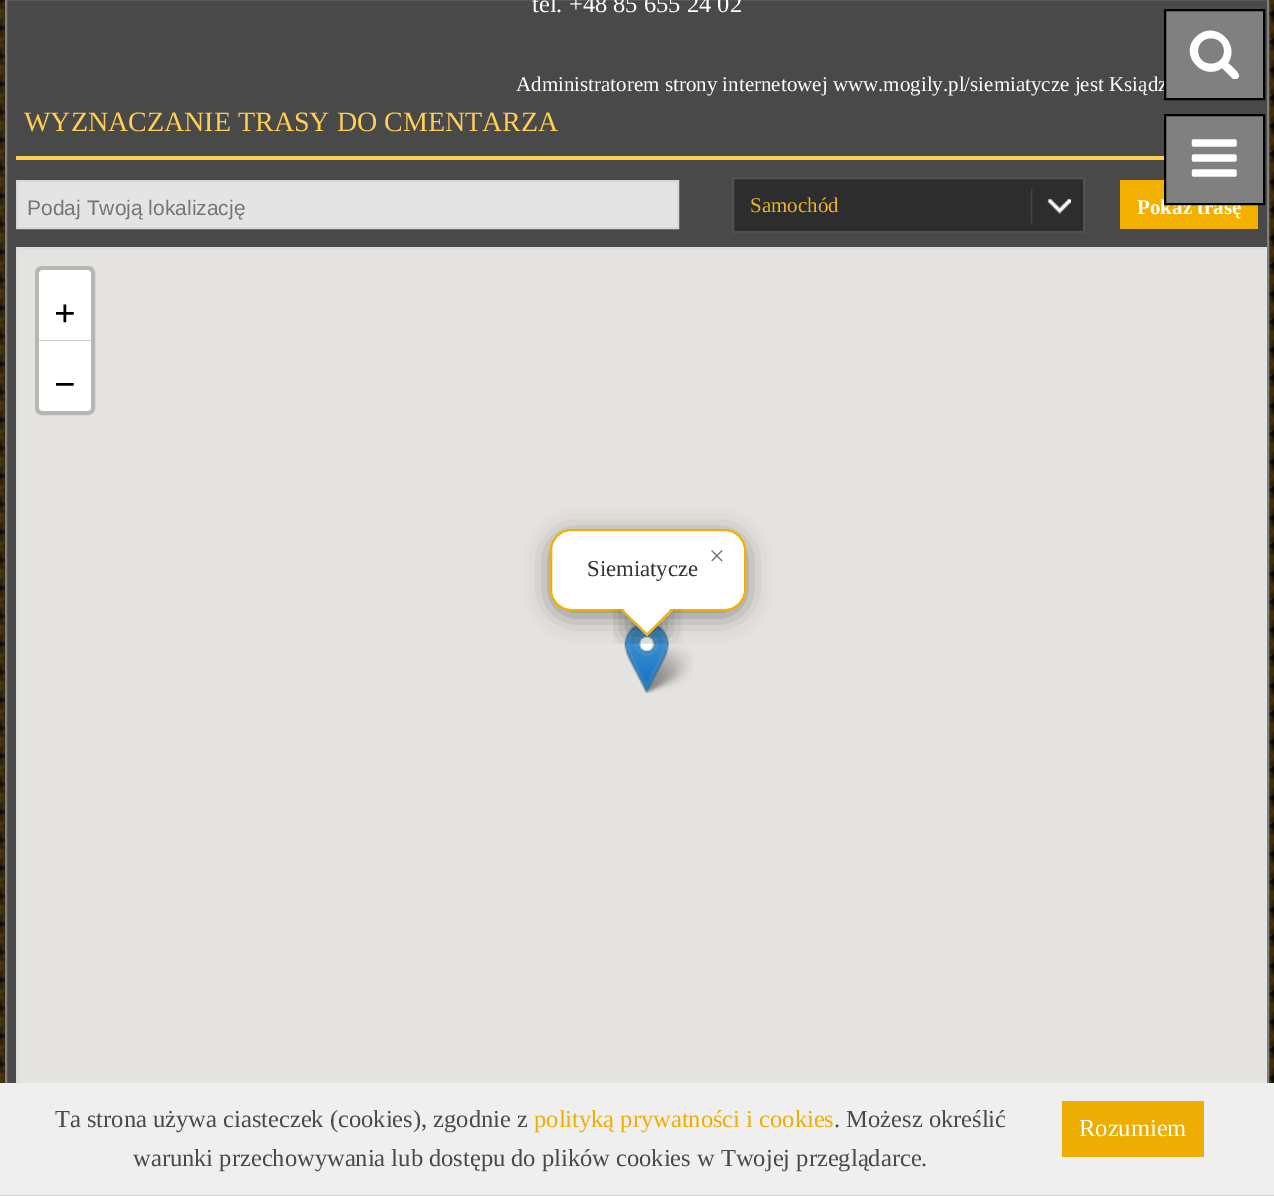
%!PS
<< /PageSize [1274 1196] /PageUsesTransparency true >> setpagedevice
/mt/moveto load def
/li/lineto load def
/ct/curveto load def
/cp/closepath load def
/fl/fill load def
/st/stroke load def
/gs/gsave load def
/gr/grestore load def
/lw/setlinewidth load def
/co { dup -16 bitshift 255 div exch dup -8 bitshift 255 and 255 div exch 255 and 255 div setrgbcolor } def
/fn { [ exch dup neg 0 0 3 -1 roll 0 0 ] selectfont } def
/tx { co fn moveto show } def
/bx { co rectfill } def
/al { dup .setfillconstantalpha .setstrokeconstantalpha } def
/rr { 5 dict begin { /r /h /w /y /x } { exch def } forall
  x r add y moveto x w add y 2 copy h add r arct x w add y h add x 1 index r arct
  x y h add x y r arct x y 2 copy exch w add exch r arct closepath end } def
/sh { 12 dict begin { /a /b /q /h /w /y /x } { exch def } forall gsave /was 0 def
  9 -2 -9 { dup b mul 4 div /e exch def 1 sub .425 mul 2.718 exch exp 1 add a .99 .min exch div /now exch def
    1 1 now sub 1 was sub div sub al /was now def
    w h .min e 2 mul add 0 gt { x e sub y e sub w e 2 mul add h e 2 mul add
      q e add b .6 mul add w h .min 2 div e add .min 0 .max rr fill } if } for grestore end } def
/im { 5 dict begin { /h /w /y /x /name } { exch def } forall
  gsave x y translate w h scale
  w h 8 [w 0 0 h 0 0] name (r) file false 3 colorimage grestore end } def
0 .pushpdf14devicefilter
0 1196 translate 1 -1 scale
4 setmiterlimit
0 0 1274 1196 16#FFFFFF bx
(media/1.raw) 0 0 1274 1083 im
7 0 1260 1083 16#494949 bx
16#808080 co
2 lw
6 -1 1262 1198 rectstroke
16 156 1148 4 16#FECF52 bx
16#E4E4E4 co
17 181 mt 678 181 li 678 228 li 17 228 li cp gs fl gr
16#D7D7D7 co
st
16#2D2D2D co
733 178 mt 1084 178 li 1084 232 li 733 232 li cp gs fl gr
16#515151 co
st
(media/2.raw) 1030 188 41 36 im
1120 180 138 49 16#F3B000 bx
18 249 1249 834 16#E5E3DF bx
gs
7 0 1260 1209 rectclip
16#DDDDDD co
17 248 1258 890 rectstroke
gr
16#B7B6B2 co
4 lw
37 268 56 145 5 rr st
16#FFFFFF co
43 270 mt 87 270 li 89 270 91 272 91 274 ct 91 341 li 39 341 li 39 274 li 39 272 41 270 43 270 ct cp fl
39 340 52 1 16#CCCCCC bx
16#FFFFFF co
39 341 mt 91 341 li 91 407 li 91 409 89 411 87 411 ct 43 411 li 41 411 39 409 39 407 ct cp fl
(media/4.raw) 640 643 53 50 im
(media/3.raw) 624 624 45 69 im
16#000000 co
550 534 196 82 21 12 .4 sh
16#FFFFFF co
551 530 194 80 20 rr gs fl gr
16#F3B000 co
2 lw
st
gs
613 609 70 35 rectclip
16#000000 co
628 597 37 37 0 12.5 .4 sh
gr
gs
613 609 70 35 rectclip
16#FFFFFF co
647 584 mt 673 610 li 647 636 li 621 610 li cp fl
16#F3B000 co
1.8 lw
647 585 mt 671.5 610 li 647 634.5 li 622 610 li cp st
gr
0 1083 1274 112 16#EFEFEF bx
0 1195 1274 1 16#D3D0D0 bx
1062 1101 142 56 16#EEAD03 bx
(tel. +48 85 655 24 02) 532 12 /LiberationSerif-Regular 24.5 16#FFFFFF tx
(Administratorem strony internetowej www.mogily.pl/siemiatycze jest Ksiądz) 516 91 /LiberationSerif-Regular 21 16#FFFFFF tx
(WYZNACZANIE TRASY DO CMENTARZA) 24 131 /LiberationSerif-Regular 28 16#FECF52 tx
(Podaj Twoją lokalizację) 27 215 /LiberationSans-Regular 21 16#757575 tx
(Samochód) 750 212 /LiberationSerif-Regular 21 16#EBB52D tx
(Pokaż trasę) 1137 214 /LiberationSerif-Bold 21 16#FFFFFF tx
(+) 54 326 /LiberationSerif-Bold 38 16#000000 tx
(−) 54 397 /LiberationSerif-Bold 38 16#000000 tx
(×) 709 565 /LiberationSerif-Regular 28 16#757575 tx
(Siemiatycze) 587 576 /LiberationSerif-Regular 22.75 16#333333 tx
16#808080 co
1165 10 mt 1264 10 li 1264 99 li 1165 99 li cp gs fl gr
16#000000 co
st
16#FFFFFF co
1224 51 mt 1224 68 1198 68 1198 51 ct 1198 34 1224 34 1224 51 ct cp 1239 76 mt 1239 72 1230 65 1228 63 ct 1241 43 1214 19 1196 37 ct 1178 54 1203 82 1222 68 ct 1232 78 li 1233 79 1234 79 1235 79 ct 1237 79 1239 78 1239 76 ct cp fl
16#808080 co
1165 115 mt 1264 115 li 1264 204 li 1165 204 li cp gs fl gr
16#000000 co
st
(media/5.raw) 1191 139 46 38 im
(Ta strona używa ciasteczek \(cookies\), zgodnie z) 55 1127 /LiberationSerif-Regular 24.5 16#494949 tx
(polityką prywatności i cookies) 534 1127 /LiberationSerif-Regular 24.5 16#EEAD03 tx
(. Możesz określić) 834 1127 /LiberationSerif-Regular 24.5 16#494949 tx
(warunki przechowywania lub dostępu do plików cookies w Twojej przeglądarce.) 133 1166 /LiberationSerif-Regular 24.5 16#494949 tx
(Rozumiem) 1079 1136 /LiberationSerif-Regular 24.5 16#FFFFFF tx
.poppdf14devicefilter showpage
